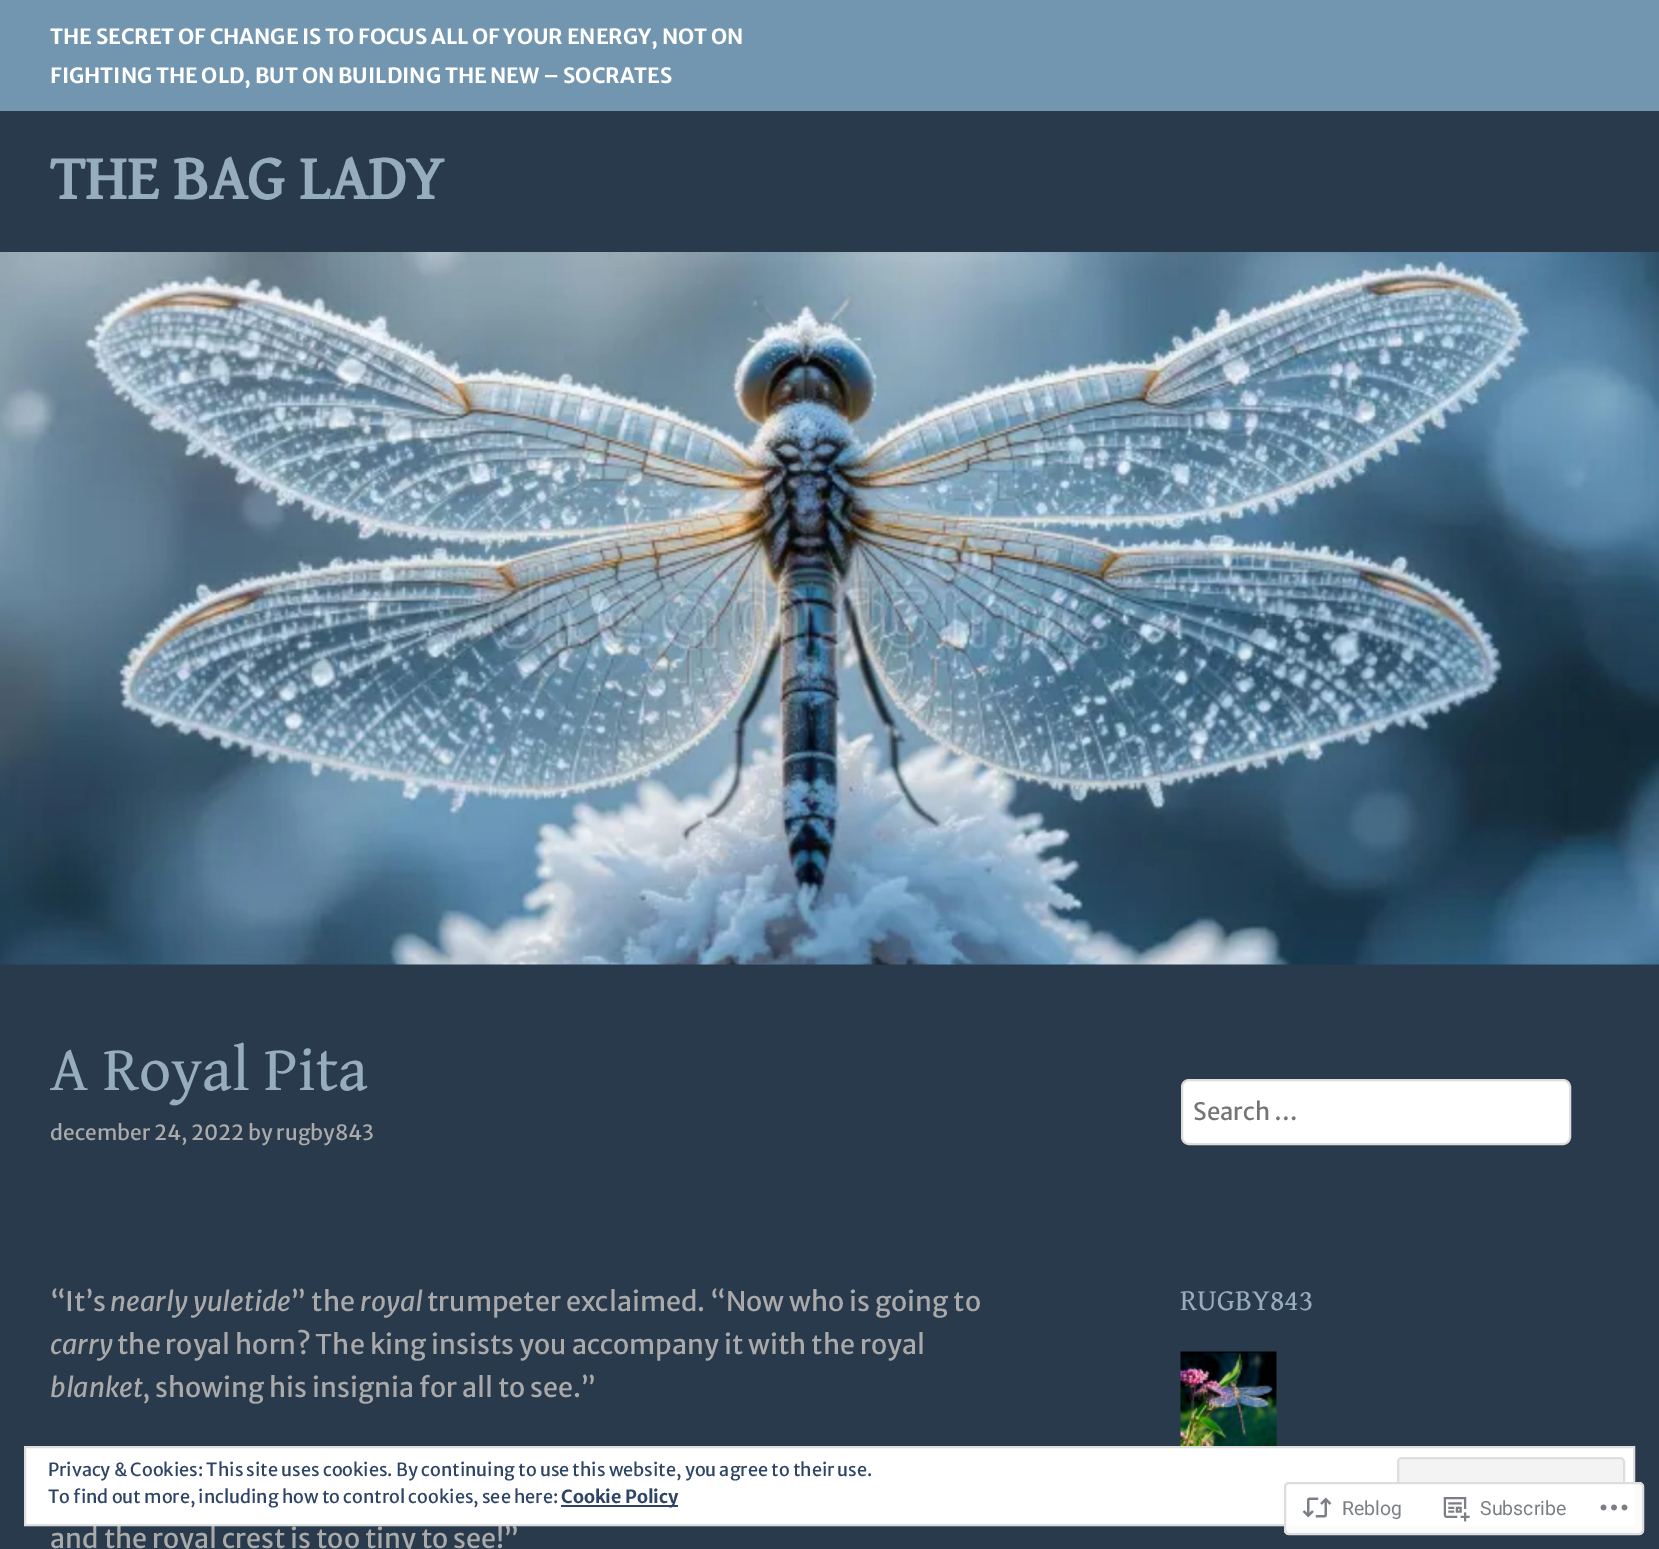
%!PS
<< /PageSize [1659 1549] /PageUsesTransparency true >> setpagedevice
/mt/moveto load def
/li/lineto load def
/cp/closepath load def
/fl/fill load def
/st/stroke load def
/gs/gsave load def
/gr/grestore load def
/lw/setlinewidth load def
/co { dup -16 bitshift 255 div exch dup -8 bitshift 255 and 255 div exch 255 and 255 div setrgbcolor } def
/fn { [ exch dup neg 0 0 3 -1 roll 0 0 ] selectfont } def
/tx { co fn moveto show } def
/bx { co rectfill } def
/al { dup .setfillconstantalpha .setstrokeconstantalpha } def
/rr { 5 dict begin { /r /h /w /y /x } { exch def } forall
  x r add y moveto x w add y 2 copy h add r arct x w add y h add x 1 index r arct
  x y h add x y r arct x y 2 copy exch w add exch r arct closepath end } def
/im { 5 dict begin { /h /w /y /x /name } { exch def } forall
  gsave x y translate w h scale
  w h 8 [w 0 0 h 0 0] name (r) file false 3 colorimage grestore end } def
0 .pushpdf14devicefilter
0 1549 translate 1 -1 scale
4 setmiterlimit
0 0 1659 1549 16#293A4C bx
0 0 1659 111 16#7296B0 bx
(media/1.raw) 0 252 1659 713 im
16#FFFFFF co
1182 1080 388 64 7 rr gs fl gr
16#DDDDDD co
2 lw
st
(media/2.raw) 1180 1351 97 95 im
(THE SECRET OF CHANGE IS TO FOCUS ALL OF YOUR ENERGY, NOT ON) 50 44 /MerriweatherSans-Bold 21 16#FFFFFF tx
(FIGHTING THE OLD, BUT ON BUILDING THE NEW – SOCRATES) 50 83 /MerriweatherSans-Bold 21 16#FFFFFF tx
(THE BAG LADY) 50 199 /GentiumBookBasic-Bold 63 16#96ADBF tx
(A Royal Pita) 50 1090 /GentiumBookBasic-Regular 63 16#96ADBF tx
(december 24, 2022 by rugby843) 50 1140 /MerriweatherSans-Regular 21 16#AAAAAA tx
(“It’s) 50 1311 /MerriweatherSans-Regular 27 16#AAAAAA tx
(nearly yuletide) 110 1311 /MerriweatherSans-Italic 27 16#AAAAAA tx
(” the) 291 1311 /MerriweatherSans-Regular 27 16#AAAAAA tx
(royal) 360 1311 /MerriweatherSans-Italic 27 16#AAAAAA tx
(trumpeter exclaimed. “Now who is going to) 427 1311 /MerriweatherSans-Regular 27 16#AAAAAA tx
(carry) 50 1354 /MerriweatherSans-Italic 27 16#AAAAAA tx
(the royal horn? The king insists you accompany it with the royal) 117 1354 /MerriweatherSans-Regular 27 16#AAAAAA tx
(blanket) 50 1397 /MerriweatherSans-Italic 27 16#AAAAAA tx
(, showing his insignia for all to see.”) 142 1397 /MerriweatherSans-Regular 27 16#AAAAAA tx
(and the royal crest is too tiny to see!”) 50 1548 /MerriweatherSans-Regular 27 16#AAAAAA tx
(Search …) 1193 1120 /MerriweatherSans-Regular 24 16#757575 tx
(RUGBY843) 1180 1310 /GentiumBookBasic-Regular 30 16#96ADBF tx
16#FFFFFF co
25 1447 mt 1634 1447 li 1634 1525 li 25 1525 li cp gs fl gr
16#DEDEDE co
st
(Privacy & Cookies: This site uses cookies. By continuing to use this website, you agree to their use.) 48 1476 /MerriweatherSans-Regular 18 16#2E4467 tx
16#F3F3F3 co
1398 1458 226 56 4 rr gs fl gr
16#DEDEDE co
st
(To find out more, including how to control cookies, see here:) 48 1503 /MerriweatherSans-Regular 18 16#2E4467 tx
561 1505 117 2 16#2E4467 bx
(Cookie Policy) 561 1503 /MerriweatherSans-Bold 18 16#2E4467 tx
0.98 al
16#FFFFFF co
1284 1482 360 53 5 rr fl
16#DCDCDE co
1285 1483 358 51 4 rr st
1 al
(media/3.raw) 1302 1497 30 21 im
(Reblog) 1342 1515 /Roboto-Regular 19.5 16#7B7F84 tx
(media/4.raw) 1443 1497 27 25 im
(Subscribe) 1480 1515 /Roboto-Regular 19.5 16#7B7F84 tx
(media/5.raw) 1600 1504 28 7 im
.poppdf14devicefilter showpage
